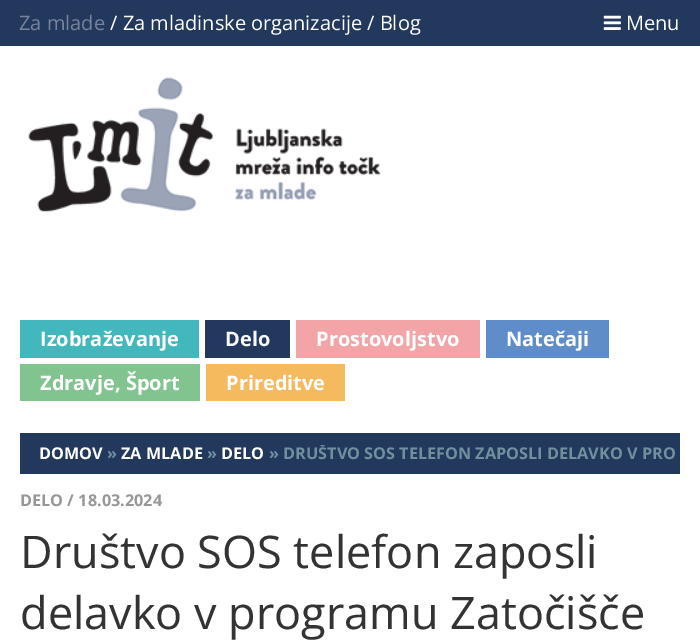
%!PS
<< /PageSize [700 641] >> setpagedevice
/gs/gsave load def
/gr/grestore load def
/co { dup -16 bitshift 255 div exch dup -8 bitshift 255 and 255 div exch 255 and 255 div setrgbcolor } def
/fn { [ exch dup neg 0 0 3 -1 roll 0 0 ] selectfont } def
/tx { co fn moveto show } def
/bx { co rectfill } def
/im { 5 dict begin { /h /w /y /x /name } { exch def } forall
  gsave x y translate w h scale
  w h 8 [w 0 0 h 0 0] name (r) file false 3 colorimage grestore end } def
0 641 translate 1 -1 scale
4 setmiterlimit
0 0 700 641 16#FFFFFF bx
0 0 700 46 16#23385D bx
(media/1.raw) 603 15 18 15 im
(media/2.raw) 28 77 353 135 im
20 320 179 38 16#43B8BC bx
205 320 85 38 16#23385D bx
296 320 184 38 16#F3A4A7 bx
486 320 123 38 16#5E8DCA bx
20 364 180 37 16#81C490 bx
206 364 139 37 16#F5BA5D bx
20 433 660 41 16#23385D bx
(Za mlade) 19 30 /OpenSans-Regular 20 16#78849C tx
(/ Za mladinske organizacije / Blog) 110 30 /OpenSans-Regular 20 16#FFFFFF tx
(Menu) 626 30 /OpenSans-Regular 20 16#FFFFFF tx
(Izobraževanje) 40 346 /OpenSans-Bold 20 16#FFFFFF tx
(Delo) 225 346 /OpenSans-Bold 20 16#F8F8F8 tx
(Prostovoljstvo) 316 346 /OpenSans-Bold 20 16#FFFFFF tx
(Natečaji) 506 346 /OpenSans-Bold 20 16#FFFFFF tx
(Zdravje, Šport) 40 390 /OpenSans-Bold 20 16#FFFFFF tx
(Prireditve) 226 390 /OpenSans-Bold 20 16#FFFFFF tx
(DOMOV) 39 459 /OpenSans-Bold 16.25 16#FFFFFF tx
(») 107 459 /OpenSans-Bold 16.25 16#70909E tx
(ZA MLADE) 121 459 /OpenSans-Bold 16.25 16#FFFFFF tx
(») 207 459 /OpenSans-Bold 16.25 16#70909E tx
(DELO) 221 459 /OpenSans-Bold 16.25 16#FFFFFF tx
gs
39 445 641 16 rectclip
(» DRUŠTVO SOS TELEFON ZAPOSLI DELAVKO V PRO) 269 459 /OpenSans-Bold 16.25 16#70909E tx
gr
(DELO / 18.03.2024) 20 506 /OpenSans-Bold 16.25 16#979797 tx
(Društvo SOS telefon zaposli) 20 568 /OpenSans-Regular 45 16#333333 tx
(delavko v programu Zatočišče) 20 629 /OpenSans-Regular 45 16#333333 tx
showpage
